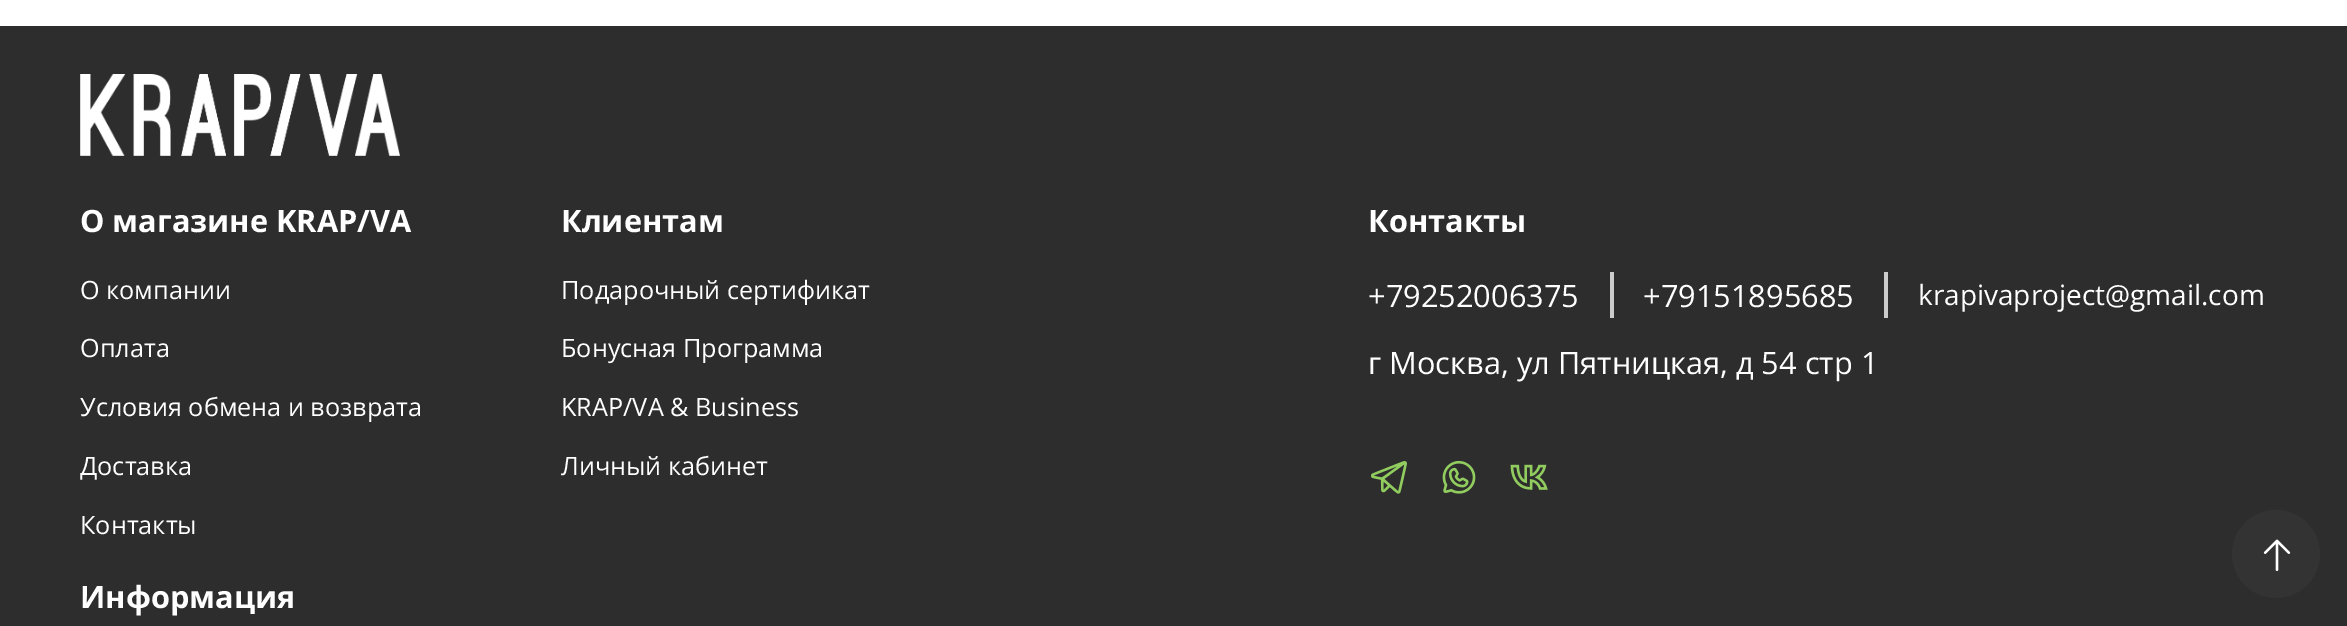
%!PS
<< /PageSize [2347 626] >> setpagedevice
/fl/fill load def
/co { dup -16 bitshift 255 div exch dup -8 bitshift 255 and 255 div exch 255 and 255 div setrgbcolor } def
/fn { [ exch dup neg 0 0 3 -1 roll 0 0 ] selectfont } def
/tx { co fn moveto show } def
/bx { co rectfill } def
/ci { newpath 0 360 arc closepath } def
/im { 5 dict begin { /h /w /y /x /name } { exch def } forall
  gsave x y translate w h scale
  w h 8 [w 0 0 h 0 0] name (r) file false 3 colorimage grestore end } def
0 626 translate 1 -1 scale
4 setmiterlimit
0 0 2347 626 16#FFFFFF bx
0 26 2347 600 16#2D2D2D bx
(media/1.raw) 80 74 320 82 im
1610 272 4 46 16#CCCCCC bx
1884 272 4 46 16#CCCCCC bx
(media/2.raw) 1371 461 36 33 im
(media/3.raw) 1442 460 34 34 im
(media/4.raw) 1510 464 38 26 im
16#333333 co
2276 554 44 ci fl
(media/5.raw) 2263 539 28 32 im
(О магазине KRAP/VA) 80 232 /OpenSans-Bold 30.75 16#FFFFFF tx
(О компании) 80 299 /OpenSans-Regular 25.25 16#FFFFFF tx
(Оплата) 80 357 /OpenSans-Regular 25.25 16#FFFFFF tx
(Условия обмена и возврата) 80 416 /OpenSans-Regular 25.25 16#FFFFFF tx
(Доставка) 80 475 /OpenSans-Regular 25.25 16#FFFFFF tx
(Контакты) 80 534 /OpenSans-Regular 25.25 16#FFFFFF tx
(Клиентам) 561 232 /OpenSans-Bold 30.75 16#FFFFFF tx
(Подарочный сертификат) 561 299 /OpenSans-Regular 25.25 16#FFFFFF tx
(Бонусная Программа) 561 357 /OpenSans-Regular 25.25 16#FFFFFF tx
(KRAP/VA & Business) 561 416 /OpenSans-Regular 25.25 16#FFFFFF tx
(Личный кабинет) 561 475 /OpenSans-Regular 25.25 16#FFFFFF tx
(Информация) 80 608 /OpenSans-Bold 30.75 16#FFFFFF tx
(Контакты) 1368 232 /OpenSans-Bold 30.75 16#FFFFFF tx
(+79252006375) 1368 307 /OpenSans-Regular 30.75 16#FFFFFF tx
(+79151895685) 1643 307 /OpenSans-Regular 30.75 16#FFFFFF tx
(krapivaproject@gmail.com) 1918 305 /OpenSans-Regular 28 16#FFFFFF tx
(г Москва, ул Пятницкая, д 54 стр 1) 1368 374 /OpenSans-Regular 30.75 16#FFFFFF tx
showpage
